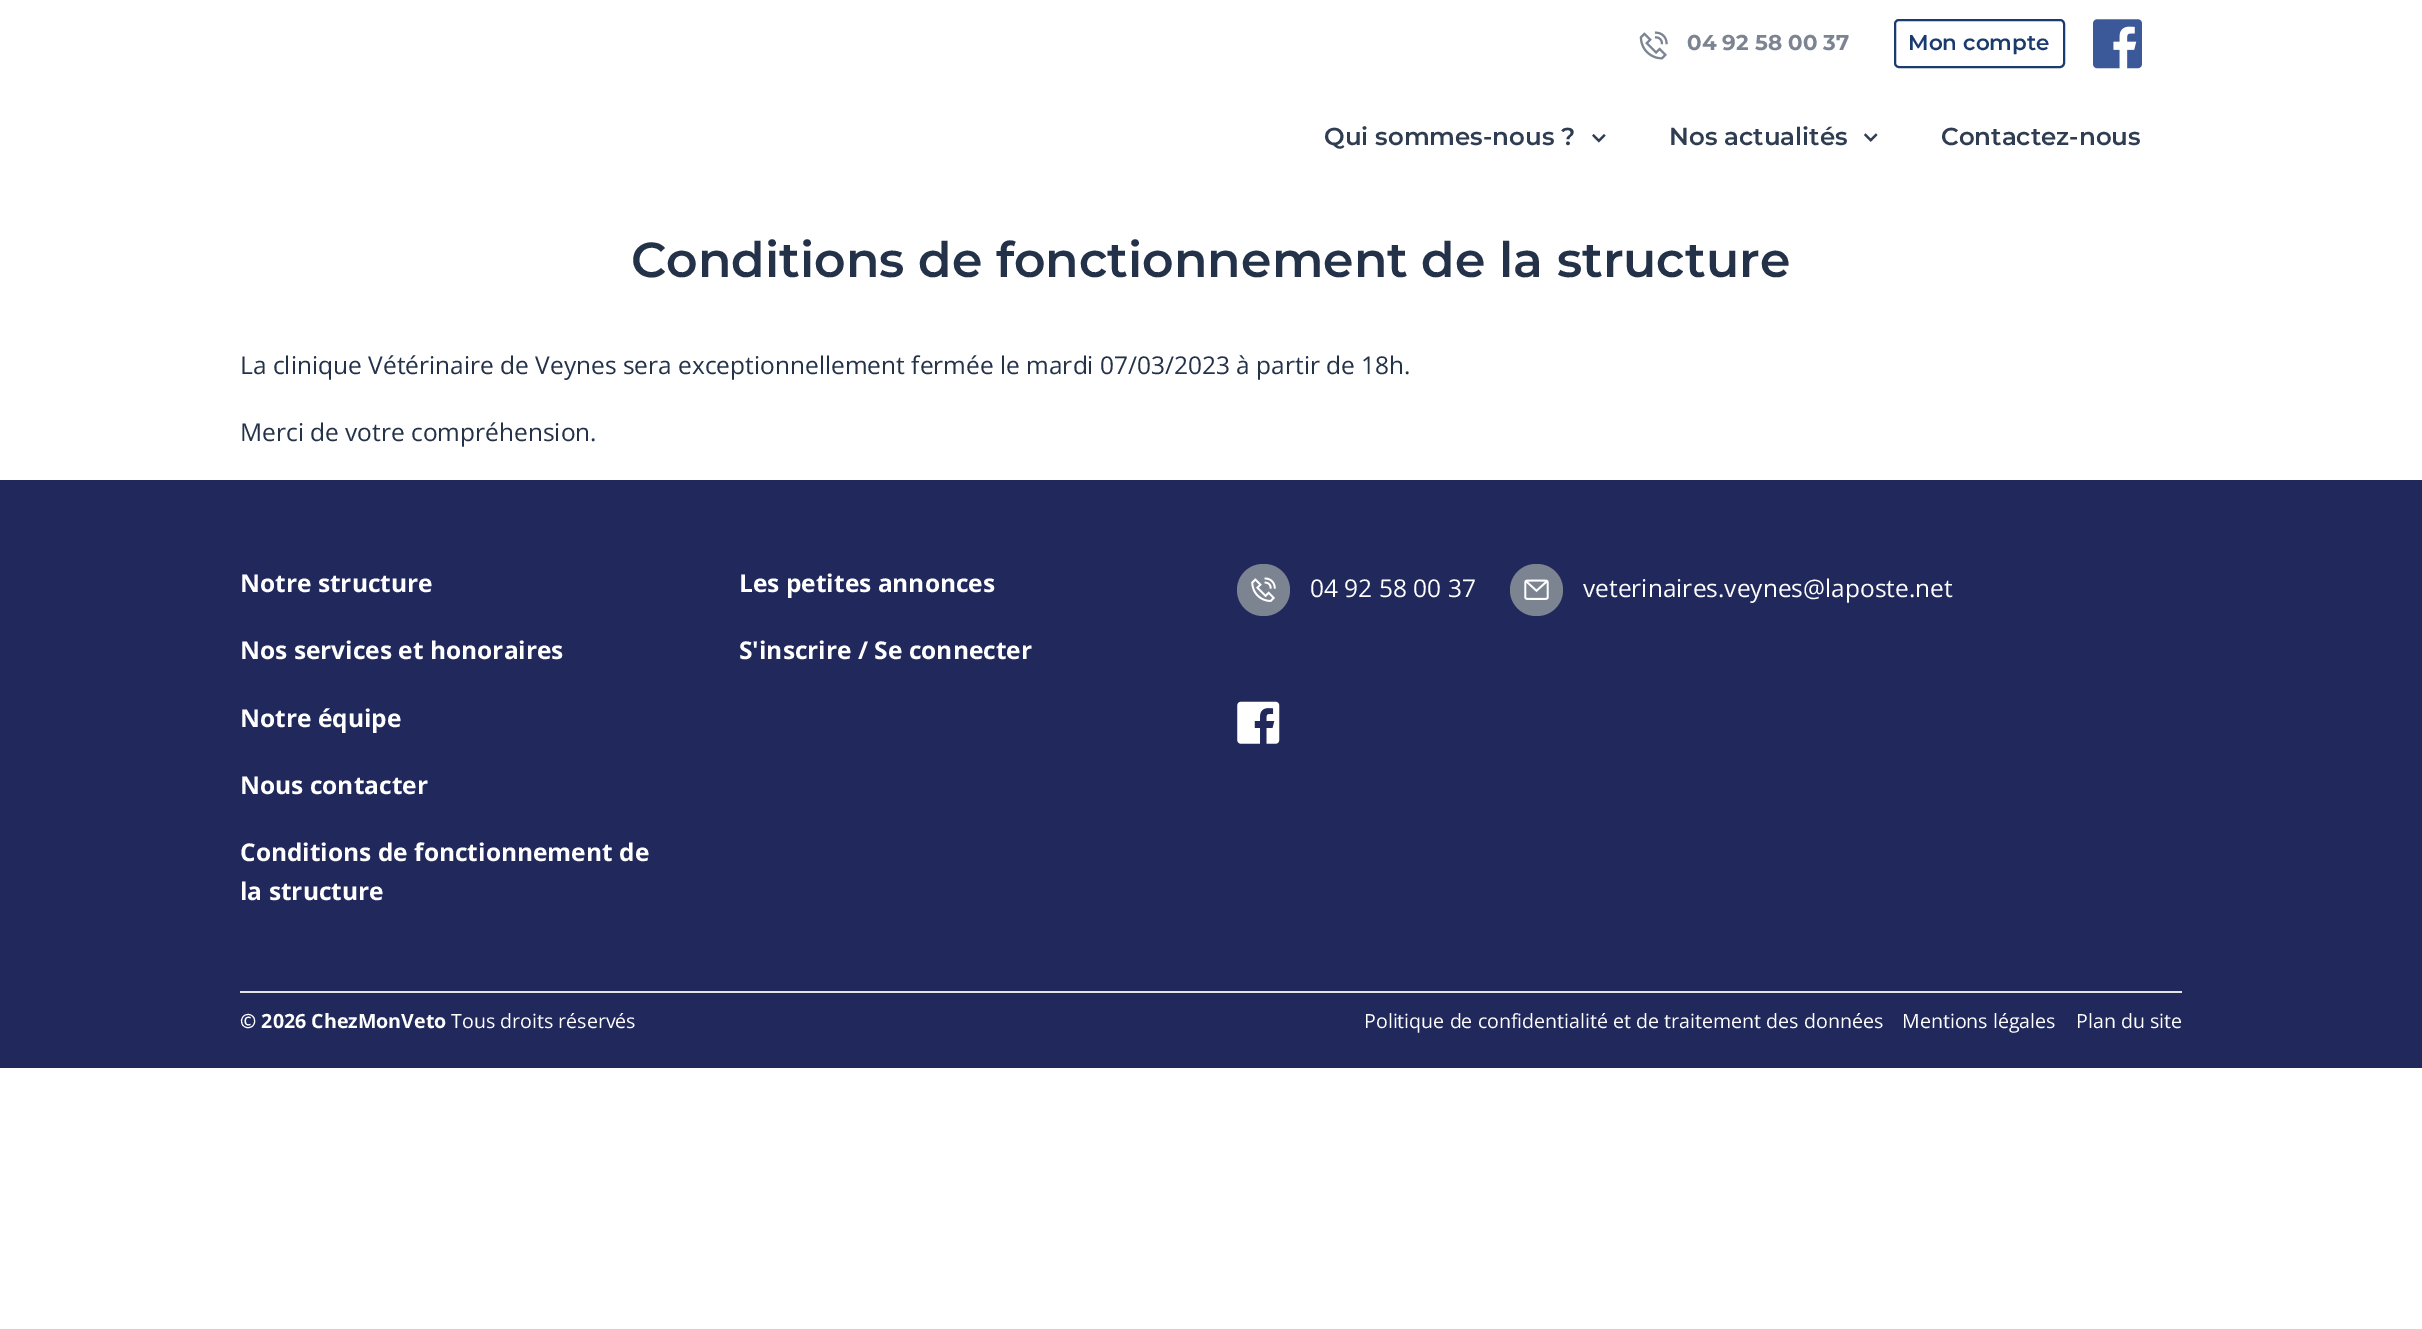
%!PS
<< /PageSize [2422 1329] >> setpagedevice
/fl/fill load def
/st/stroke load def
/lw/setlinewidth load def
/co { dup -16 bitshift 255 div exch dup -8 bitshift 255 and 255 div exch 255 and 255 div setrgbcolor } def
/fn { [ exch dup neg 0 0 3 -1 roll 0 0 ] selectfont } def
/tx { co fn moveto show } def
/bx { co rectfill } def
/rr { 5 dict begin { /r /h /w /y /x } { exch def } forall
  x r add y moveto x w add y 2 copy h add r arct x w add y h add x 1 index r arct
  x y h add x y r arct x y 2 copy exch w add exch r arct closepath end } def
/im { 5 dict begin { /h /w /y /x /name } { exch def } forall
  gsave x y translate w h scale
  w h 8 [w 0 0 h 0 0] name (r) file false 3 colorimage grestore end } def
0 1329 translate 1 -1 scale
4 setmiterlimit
0 0 2422 1329 16#FFFFFF bx
(media/1.raw) 1639 31 29 29 im
16#1B3B6F co
2 lw
1895 20 169 47 4 rr st
(media/2.raw) 2093 19 49 50 im
(media/3.raw) 1592 134 14 9 im
(media/4.raw) 1864 133 14 9 im
0 480 2422 588 16#21295C bx
16#7C8492 co
1237 564 53 52 26 rr fl
(media/5.raw) 1251 577 25 25 im
1510 564 53 52 26 rr fl
(media/6.raw) 1524 579 25 21 im
(media/7.raw) 1237 701 43 43 im
240 991 1942 2 16#E3E4E7 bx
(04 92 58 00 37) 1687 50 /Montserrat-Bold 21.5 16#7C8492 tx
(Mon compte) 1908 50 /Montserrat-SemiBold 21.5 16#1B3B6F tx
(Qui sommes-nous ?) 1324 145 /Montserrat-SemiBold 24.5 16#2F3D52 tx
(Nos actualités) 1669 145 /Montserrat-SemiBold 24.5 16#2F3D52 tx
(Contactez-nous) 1941 145 /Montserrat-SemiBold 24.5 16#2F3D52 tx
(Conditions de fonctionnement de la structure) 631 277 /Montserrat-SemiBold 49 16#243249 tx
(La clinique Vétérinaire de Veynes sera exceptionnellement fermée le mardi 07/03/2023 à partir de 18h.) 240 374 /OpenSans-Regular 24.5 16#243249 tx
(Merci de votre compréhension.) 240 441 /OpenSans-Regular 24.5 16#243249 tx
(Notre structure) 240 592 /OpenSans-Bold 24.5 16#FFFFFF tx
(Nos services et honoraires) 240 659 /OpenSans-Bold 24.5 16#FFFFFF tx
(Notre équipe) 240 727 /OpenSans-Bold 24.5 16#FFFFFF tx
(Nous contacter) 240 794 /OpenSans-Bold 24.5 16#FFFFFF tx
(Conditions de fonctionnement de) 240 861 /OpenSans-Bold 24.5 16#FFFFFF tx
(la structure) 240 900 /OpenSans-Bold 24.5 16#FFFFFF tx
(Les petites annonces) 739 592 /OpenSans-Bold 24.5 16#FFFFFF tx
(S'inscrire / Se connecter) 739 659 /OpenSans-Bold 24.5 16#FFFFFF tx
(04 92 58 00 37) 1310 597 /OpenSans-Regular 24.5 16#FFFFFF tx
(veterinaires.veynes@laposte.net) 1583 597 /OpenSans-Regular 24.5 16#FFFFFF tx
(© 2026 ChezMonVeto) 240 1028 /OpenSans-Bold 19.6 16#FFFFFF tx
(Tous droits réservés) 451 1028 /OpenSans-Regular 19.6 16#FFFFFF tx
(Politique de confidentialité et de traitement des données) 1364 1028 /OpenSans-Regular 19.6 16#FFFFFF tx
(Mentions légales) 1902 1028 /OpenSans-Regular 19.6 16#FFFFFF tx
(Plan du site) 2076 1028 /OpenSans-Regular 19.6 16#FFFFFF tx
showpage
